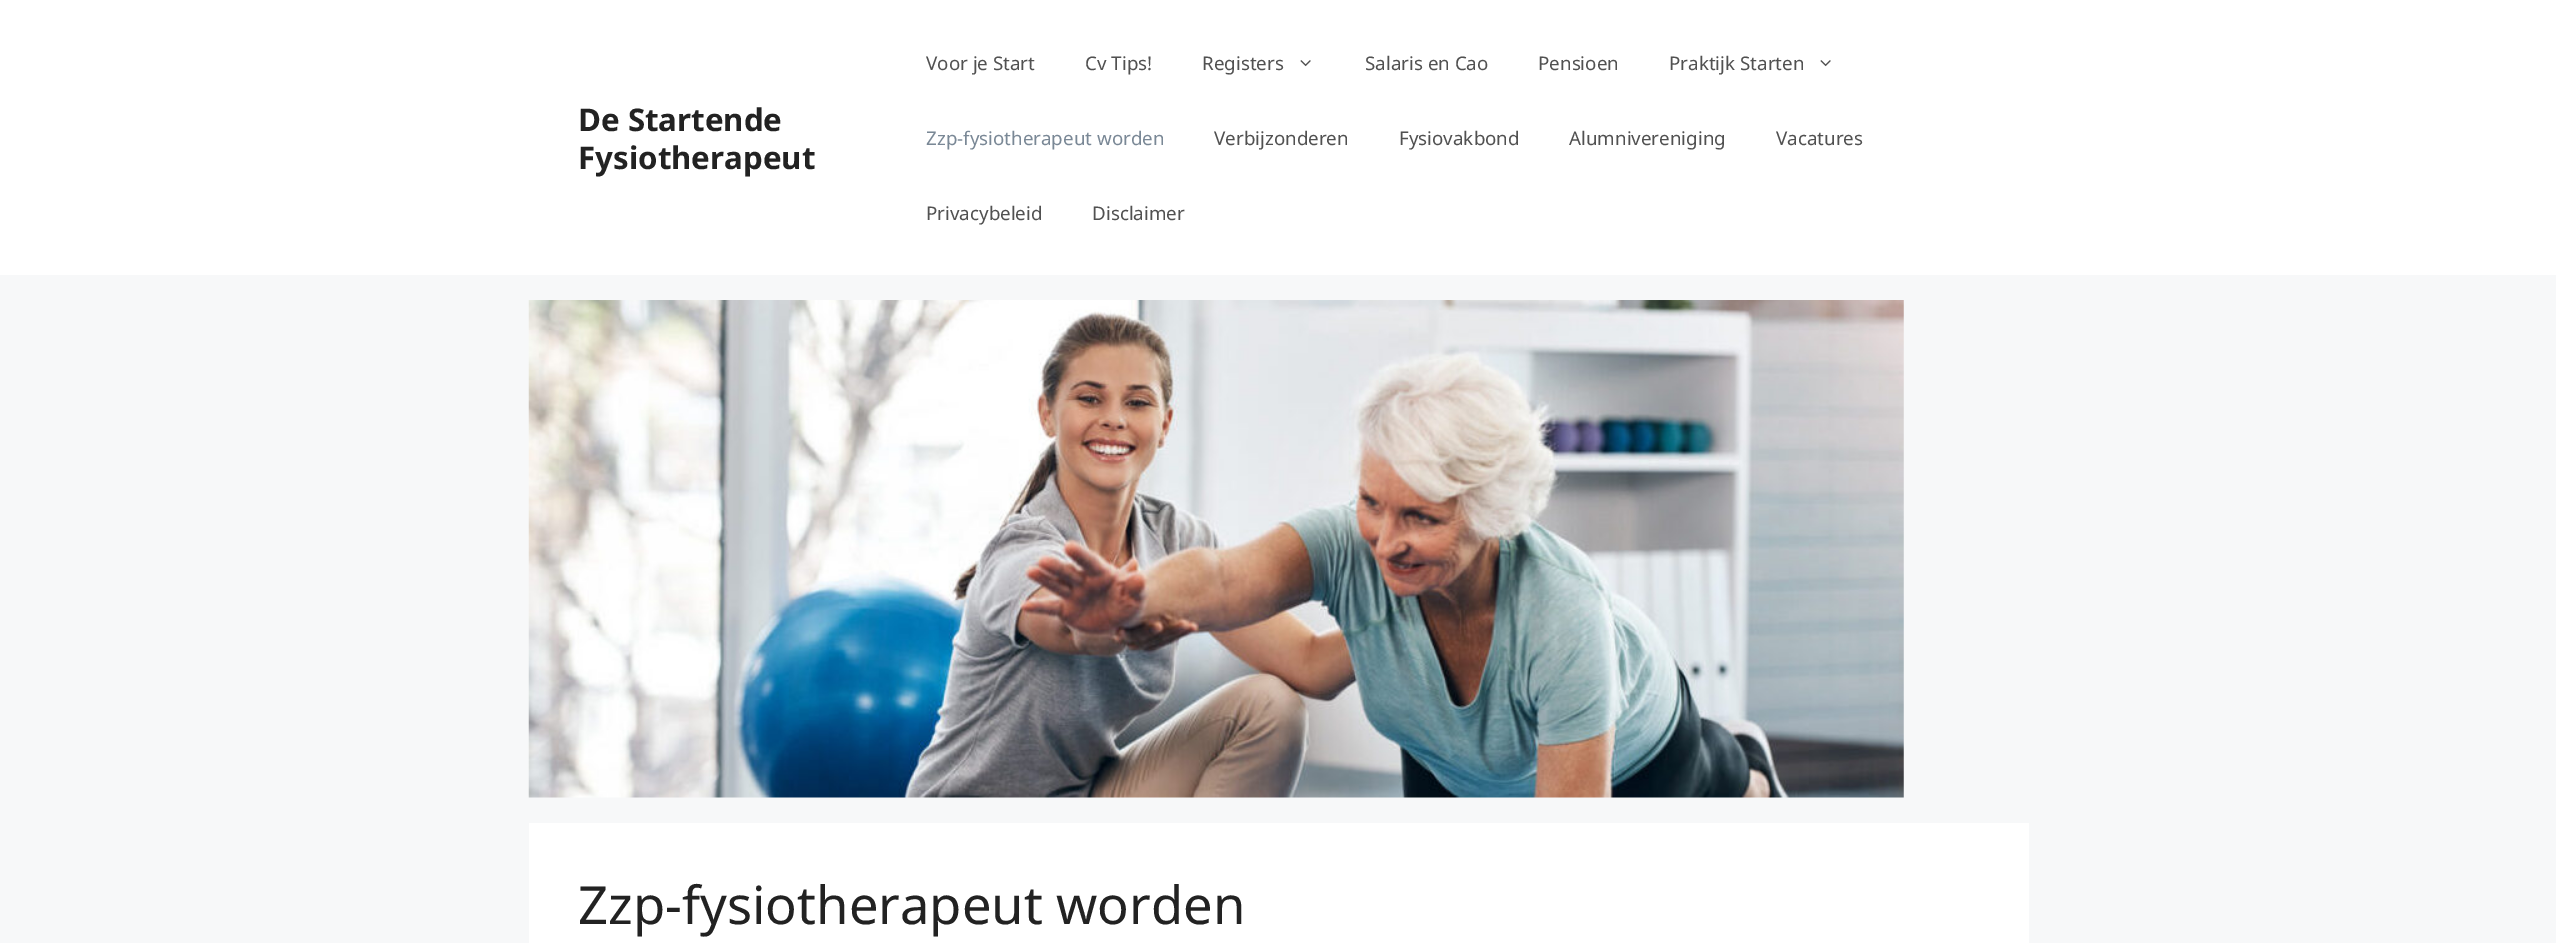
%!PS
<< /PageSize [2556 943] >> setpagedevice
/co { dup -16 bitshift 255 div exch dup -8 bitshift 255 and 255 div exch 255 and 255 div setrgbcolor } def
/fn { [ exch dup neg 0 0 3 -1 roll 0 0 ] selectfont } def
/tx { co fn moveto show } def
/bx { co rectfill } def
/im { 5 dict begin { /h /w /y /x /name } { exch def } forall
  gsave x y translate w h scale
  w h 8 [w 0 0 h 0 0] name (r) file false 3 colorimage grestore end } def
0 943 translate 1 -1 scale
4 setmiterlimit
0 0 2556 943 16#F7F8F9 bx
0 0 2556 275 16#FFFFFF bx
(media/1.raw) 1300 60 11 7 im
(media/1.raw) 1820 60 11 7 im
(media/2.raw) 528 300 1376 498 im
529 823 1500 120 16#FFFFFF bx
(De Startende) 578 131 /NotoSans-Bold 31.25 16#222222 tx
(Fysiotherapeut) 578 169 /NotoSans-Bold 31.25 16#222222 tx
(Voor je Start) 926 70 /NotoSans-Regular 18.75 16#515151 tx
(Cv Tips!) 1085 70 /NotoSans-Regular 18.75 16#515151 tx
(Registers) 1202 70 /NotoSans-Regular 18.75 16#515151 tx
(Salaris en Cao) 1365 70 /NotoSans-Regular 18.75 16#515151 tx
(Pensioen) 1538 70 /NotoSans-Regular 18.75 16#515151 tx
(Praktijk Starten) 1669 70 /NotoSans-Regular 18.75 16#515151 tx
(Zzp-fysiotherapeut worden) 926 145 /NotoSans-Regular 18.75 16#7A8896 tx
(Verbijzonderen) 1214 145 /NotoSans-Regular 18.75 16#515151 tx
(Fysiovakbond) 1399 145 /NotoSans-Regular 18.75 16#515151 tx
(Alumnivereniging) 1569 145 /NotoSans-Regular 18.75 16#515151 tx
(Vacatures) 1776 145 /NotoSans-Regular 18.75 16#515151 tx
(Privacybeleid) 926 220 /NotoSans-Regular 18.75 16#515151 tx
(Disclaimer) 1092 220 /NotoSans-Regular 18.75 16#515151 tx
(Zzp-fysiotherapeut worden) 578 924 /NotoSans-Regular 52.5 16#222222 tx
showpage
